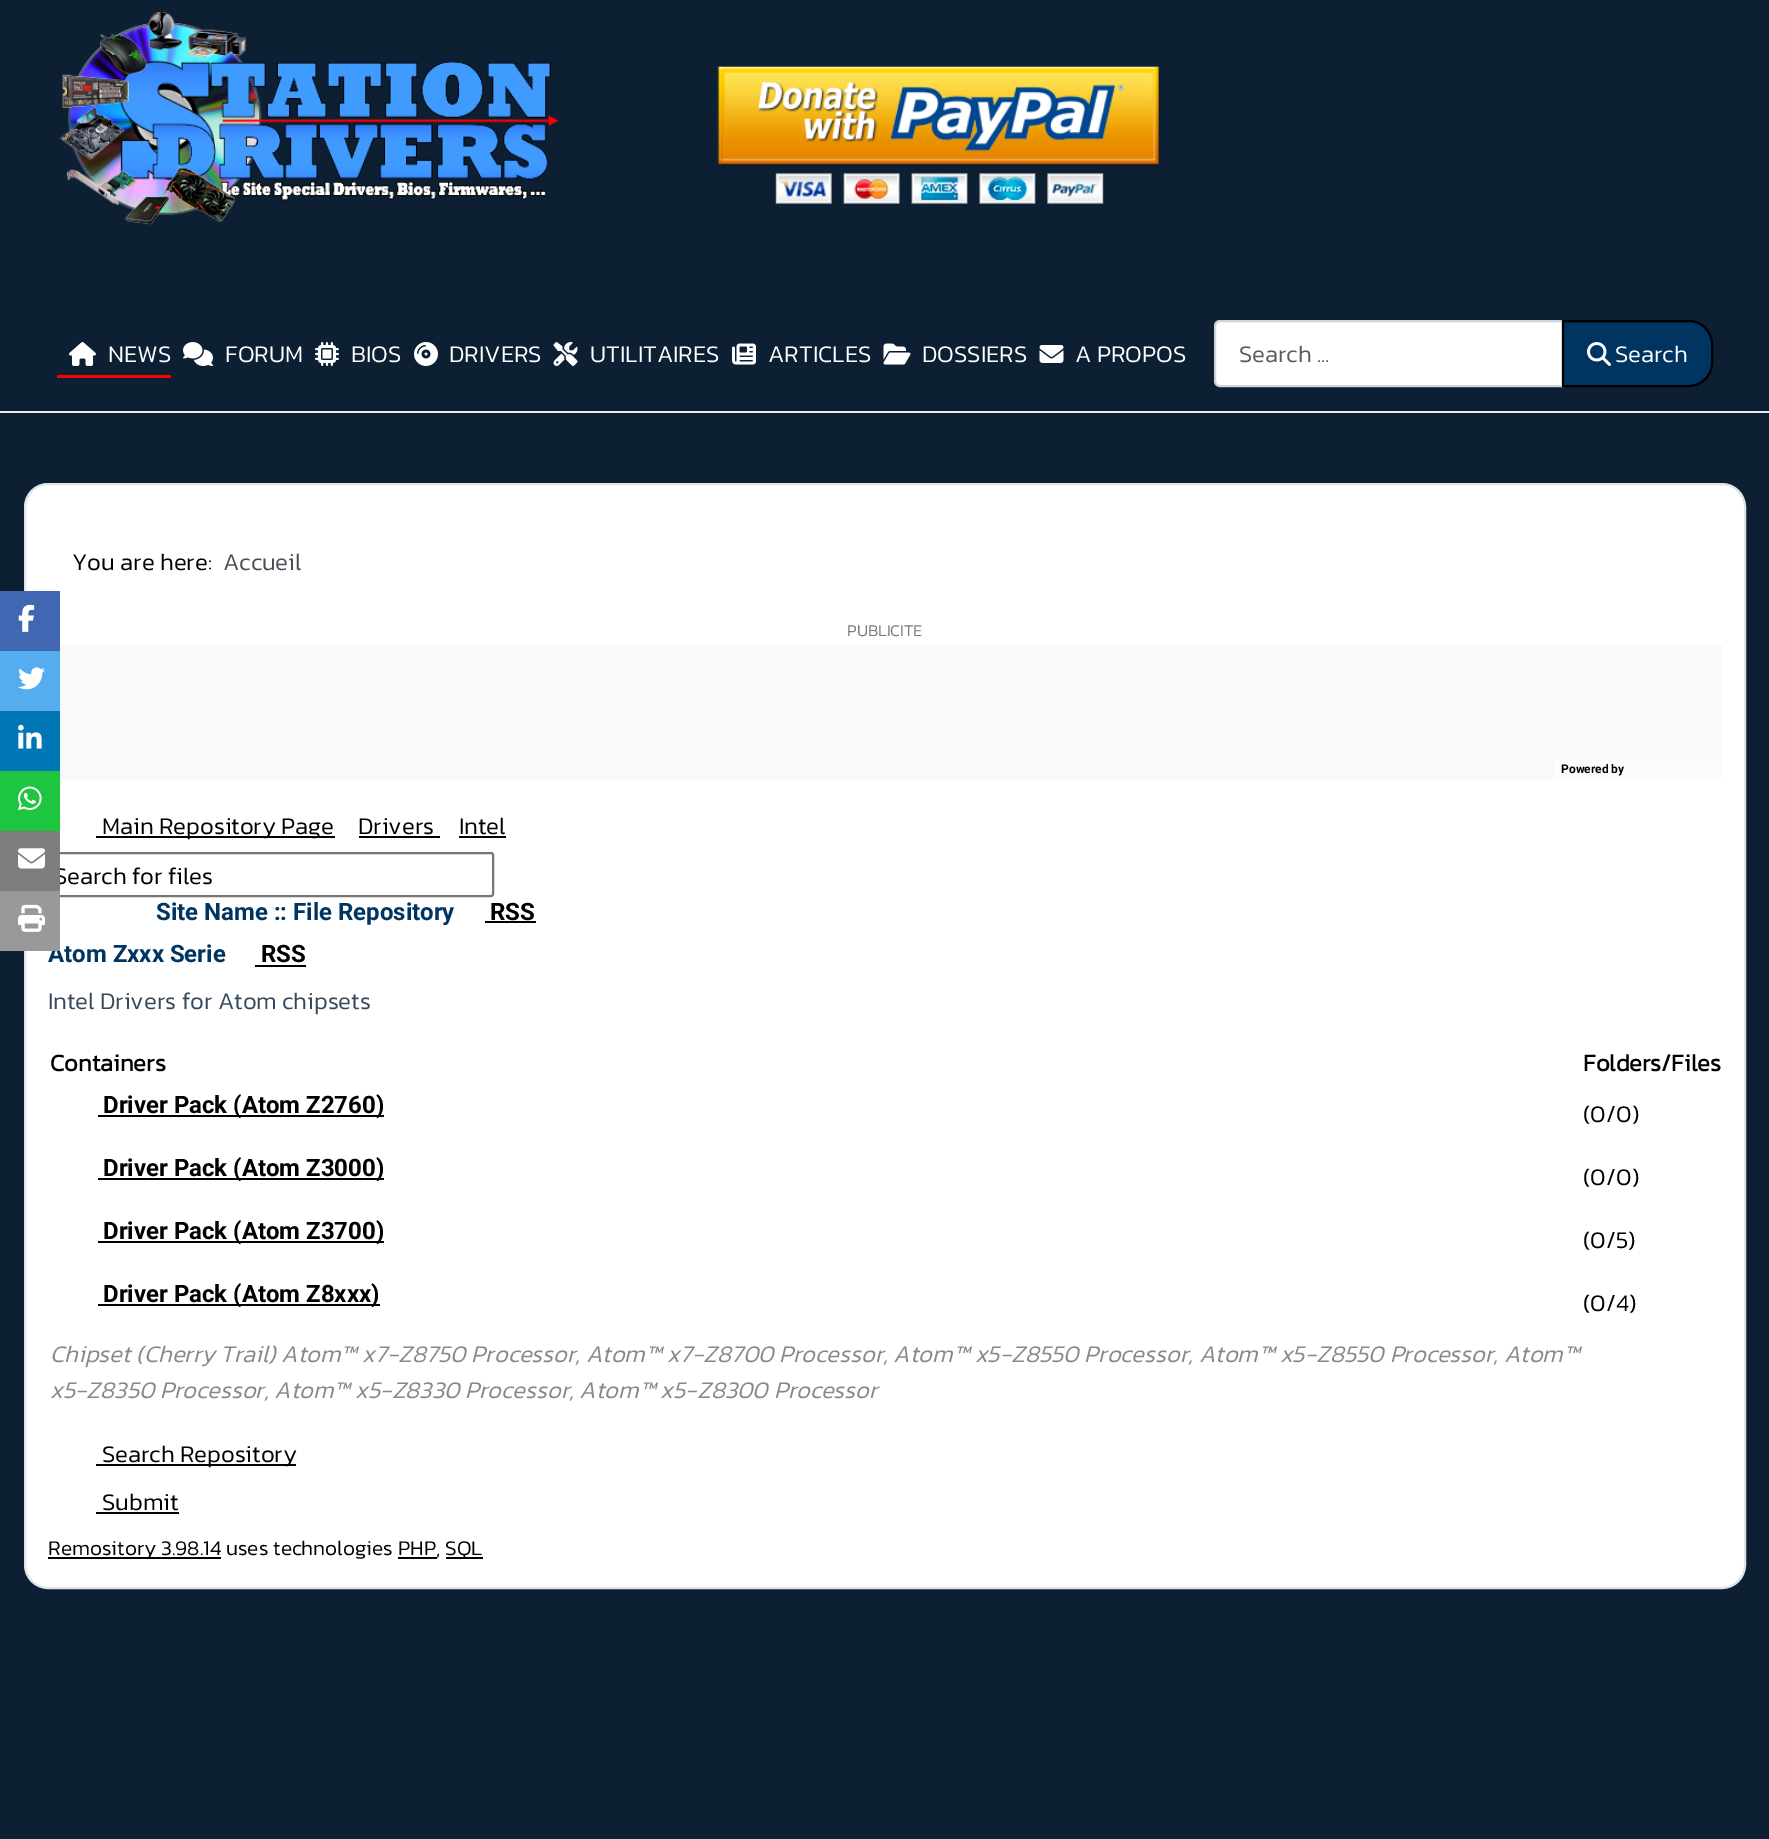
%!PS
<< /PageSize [1769 1839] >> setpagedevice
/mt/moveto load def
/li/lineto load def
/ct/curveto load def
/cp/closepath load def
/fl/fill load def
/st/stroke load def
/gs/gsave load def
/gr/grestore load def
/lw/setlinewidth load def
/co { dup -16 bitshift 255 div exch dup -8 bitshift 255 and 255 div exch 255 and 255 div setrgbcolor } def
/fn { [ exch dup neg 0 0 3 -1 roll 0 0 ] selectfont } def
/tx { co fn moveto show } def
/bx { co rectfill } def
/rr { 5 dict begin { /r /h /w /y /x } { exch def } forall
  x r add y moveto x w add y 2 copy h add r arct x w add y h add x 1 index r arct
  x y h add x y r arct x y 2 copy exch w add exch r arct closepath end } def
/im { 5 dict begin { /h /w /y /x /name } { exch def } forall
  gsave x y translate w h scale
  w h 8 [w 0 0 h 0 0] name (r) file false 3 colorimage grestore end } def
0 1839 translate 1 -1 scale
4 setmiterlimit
0 0 1769 1839 16#0D1F33 bx
0 411 1769 2 16#EAEAEA bx
(media/1.raw) 59 12 500 213 im
(media/2.raw) 717 66 443 138 im
(media/3.raw) 69 342 27 24 im
57 375 114 3 16#FF0000 bx
(media/4.raw) 183 342 30 24 im
(media/5.raw) 315 342 24 24 im
(media/6.raw) 414 342 24 24 im
(media/7.raw) 553 342 25 24 im
(media/8.raw) 732 343 24 22 im
(media/9.raw) 883 343 28 22 im
(media/10.raw) 1039 345 25 18 im
16#FFFFFF co
1220 321 mt 1562 321 li 1562 386 li 1220 386 li 1217 386 1215 384 1215 381 ct 1215 326 li 1215 323 1217 321 1220 321 ct cp gs fl gr
16#CED4DA co
2 lw
st
16#003461 co
1563 321 mt 1689 321 li 1701.5 321 1712 331.5 1712 344 ct 1712 363 li 1712 375.5 1701.5 386 1689 386 ct 1563 386 li cp gs fl gr
16#000000 co
st
(media/11.raw) 1587 342 24 24 im
16#FFFFFF co
25 484 1720 1104 23 rr gs fl gr
16#DFE3E7 co
st
0 591 60 60 16#4267B2 bx
(media/12.raw) 18 604 17 28 im
0 651 60 60 16#55ACEE bx
(media/13.raw) 18 667 27 23 im
0 711 60 60 16#0077B5 bx
(media/14.raw) 18 724 24 25 im
0 771 60 60 16#1EC53F bx
(media/15.raw) 18 786 24 25 im
60 645 1662 135 16#F9F9F9 bx
1554 759 168 21 16#FCFCFC bx
96 836 239 2 16#000000 bx
359 836 81 2 16#000000 bx
459 836 47 2 16#000000 bx
16#767676 co
49 853 444 43 2 rr st
485 921 51 2 16#000000 bx
255 965 51 2 16#000000 bx
98 1115 286 2 16#000000 bx
98 1178 286 2 16#000000 bx
98 1241 286 2 16#000000 bx
98 1304 282 2 16#000000 bx
96 1464 200 2 16#000000 bx
96 1512 83 2 16#000000 bx
48 1557 173 2 16#000000 bx
398 1557 39 2 16#000000 bx
446 1557 37 2 16#000000 bx
(NEWS) 108 362 /Kanit-Light 24 16#FFFFFF tx
(FORUM) 225 362 /Kanit-Light 24 16#FFFFFF tx
(BIOS) 351 362 /Kanit-Light 24 16#FFFFFF tx
(DRIVERS) 449 362 /Kanit-Light 24 16#FFFFFF tx
(UTILITAIRES) 590 362 /Kanit-Light 24 16#FFFFFF tx
(ARTICLES) 768 362 /Kanit-Light 24 16#FFFFFF tx
(DOSSIERS) 922 362 /Kanit-Light 24 16#FFFFFF tx
(A PROPOS) 1075 362 /Kanit-Light 24 16#FFFFFF tx
(Search ...) 1239 362 /Kanit-Light 24 16#595C5F tx
(Search) 1615 362 /Kanit-Light 24 16#FFFFFF tx
(You are here:) 72 570 /Kanit-Light 24 16#000000 tx
(Accueil) 223 570 /Kanit-Light 24 16#484F56 tx
(PUBLICITE) 847 636 /Kanit-Light 16.5 16#777777 tx
(Powered by) 1561 773 /Roboto-Bold 12 16#000000 tx
(Main Repository Page) 102 834 /Kanit-Light 24 16#000000 tx
(Drivers) 358 834 /Kanit-Light 24 16#000000 tx
(Intel) 459 834 /Kanit-Light 24 16#000000 tx
(Search for files) 54 884 /Kanit-Light 24 16#000000 tx
0 831 60 60 16#7D7D7D bx
(media/16.raw) 18 848 27 21 im
(Site Name :: File Repository) 156 920 /Roboto-Bold 24 16#003461 tx
(RSS) 490 920 /Roboto-Bold 24 16#000000 tx
(Atom Zxxx Serie) 48 962 /Roboto-Bold 24 16#003461 tx
0 891 60 60 16#999999 bx
(media/17.raw) 18 904 27 28 im
(RSS) 261 962 /Roboto-Bold 24 16#000000 tx
(Intel Drivers for Atom chipsets) 48 1009 /Kanit-Light 24 16#34495E tx
(Containers) 50 1071 /Kanit-Bold 24 16#000000 tx
(Folders/Files) 1583 1071 /Kanit-Bold 24 16#000000 tx
(Driver Pack \(Atom Z2760\)) 103 1113 /Roboto-Bold 24 16#000000 tx
(\(0/0\)) 1583 1122 /Kanit-Light 24 16#000000 tx
(Driver Pack \(Atom Z3000\)) 103 1176 /Roboto-Bold 24 16#000000 tx
(\(0/0\)) 1583 1185 /Kanit-Light 24 16#000000 tx
(Driver Pack \(Atom Z3700\)) 103 1239 /Roboto-Bold 24 16#000000 tx
(\(0/5\)) 1583 1248 /Kanit-Light 24 16#000000 tx
(Driver Pack \(Atom Z8xxx\)) 103 1302 /Roboto-Bold 24 16#000000 tx
(\(0/4\)) 1583 1311 /Kanit-Light 24 16#000000 tx
(Chipset \(Cherry Trail\) Atom™ x7-Z8750 Processor, Atom™ x7-Z8700 Processor, Atom™ x5-Z8550 Processor, Atom™ x5-Z8550 Processor, Atom™) 50 1362 /Kanit-LightItalic 24 16#888888 tx
(x5-Z8350 Processor, Atom™ x5-Z8330 Processor, Atom™ x5-Z8300 Processor) 50 1398 /Kanit-LightItalic 24 16#888888 tx
(Search Repository) 102 1462 /Kanit-Light 24 16#000000 tx
(Submit) 102 1510 /Kanit-Light 24 16#000000 tx
(Remository 3.98.14 uses technologies PHP) 48 1555 /Kanit-Light 21 16#000000 tx
(,) 436 1555 /Kanit-Light 21 16#000000 tx
(SQL) 445 1555 /Kanit-Light 21 16#000000 tx
showpage
